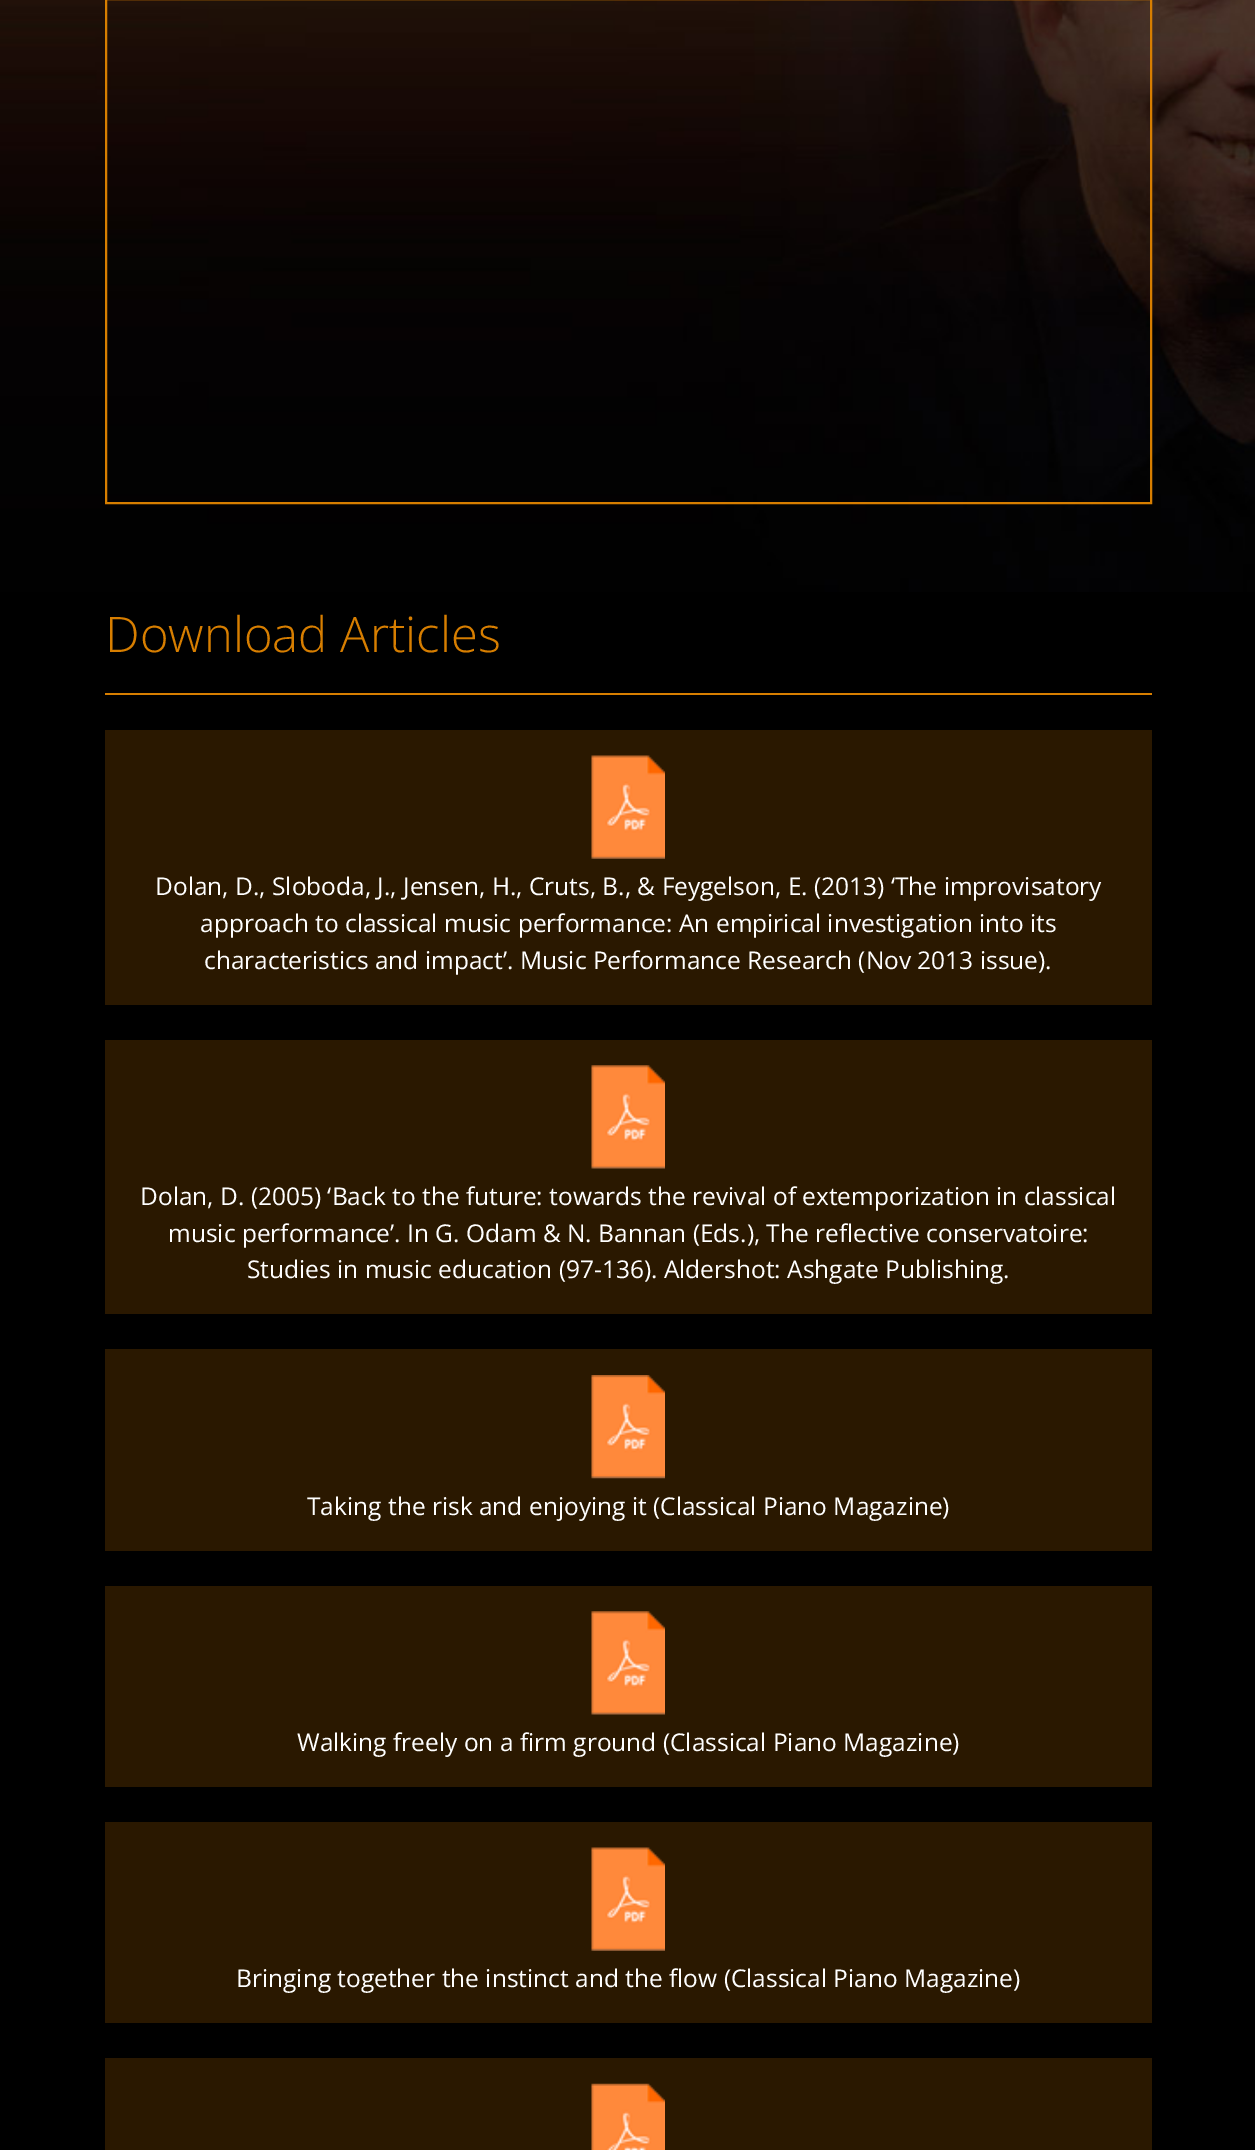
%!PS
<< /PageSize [1255 2150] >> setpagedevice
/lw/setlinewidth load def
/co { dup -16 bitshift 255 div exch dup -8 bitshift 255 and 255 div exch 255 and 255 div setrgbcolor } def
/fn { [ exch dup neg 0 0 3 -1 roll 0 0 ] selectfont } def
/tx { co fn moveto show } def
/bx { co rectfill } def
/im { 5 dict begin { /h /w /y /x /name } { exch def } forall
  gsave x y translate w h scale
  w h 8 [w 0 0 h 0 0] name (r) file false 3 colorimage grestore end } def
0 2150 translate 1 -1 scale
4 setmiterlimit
0 0 1255 2150 16#000000 bx
(media/1.raw) 0 0 1255 592 im
16#D77E00 co
2 lw
106 -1 1045 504 rectstroke
105 693 1047 2 16#D77E00 bx
105 730 1047 275 16#2A1800 bx
(media/2.raw) 591 755 74 104 im
105 1040 1047 274 16#2A1800 bx
(media/3.raw) 591 1065 74 104 im
105 1349 1047 202 16#2A1800 bx
(media/4.raw) 591 1375 74 104 im
105 1586 1047 201 16#2A1800 bx
(media/3.raw) 591 1611 74 104 im
105 1822 1047 201 16#2A1800 bx
(media/2.raw) 591 1847 74 104 im
105 2058 1047 92 16#2A1800 bx
(media/5.raw) 591 2083 74 67 im
(Download Articles) 105 652 /OpenSans-Light 49 16#D77E00 tx
(Dolan, D., Sloboda, J., Jensen, H., Cruts, B., & Feygelson, E. \(2013\) ‘The improvisatory) 155 895 /OpenSans-Regular 24.5 16#FFFFFF tx
(approach to classical music performance: An empirical investigation into its) 200 932 /OpenSans-Regular 24.5 16#FFFFFF tx
(characteristics and impact’. Music Performance Research \(Nov 2013 issue\).) 204 969 /OpenSans-Regular 24.5 16#FFFFFF tx
(Dolan, D. \(2005\) ‘Back to the future: towards the revival of extemporization in classical) 140 1205 /OpenSans-Regular 24.5 16#FFFFFF tx
(music performance’. In G. Odam & N. Bannan \(Eds.\), The reflective conservatoire:) 168 1242 /OpenSans-Regular 24.5 16#FFFFFF tx
(Studies in music education \(97-136\). Aldershot: Ashgate Publishing.) 247 1278 /OpenSans-Regular 24.5 16#FFFFFF tx
(Taking the risk and enjoying it \(Classical Piano Magazine\)) 307 1515 /OpenSans-Regular 24.5 16#FFFFFF tx
(Walking freely on a firm ground \(Classical Piano Magazine\)) 297 1751 /OpenSans-Regular 24.5 16#FFFFFF tx
(Bringing together the instinct and the flow \(Classical Piano Magazine\)) 236 1987 /OpenSans-Regular 24.5 16#FFFFFF tx
showpage
